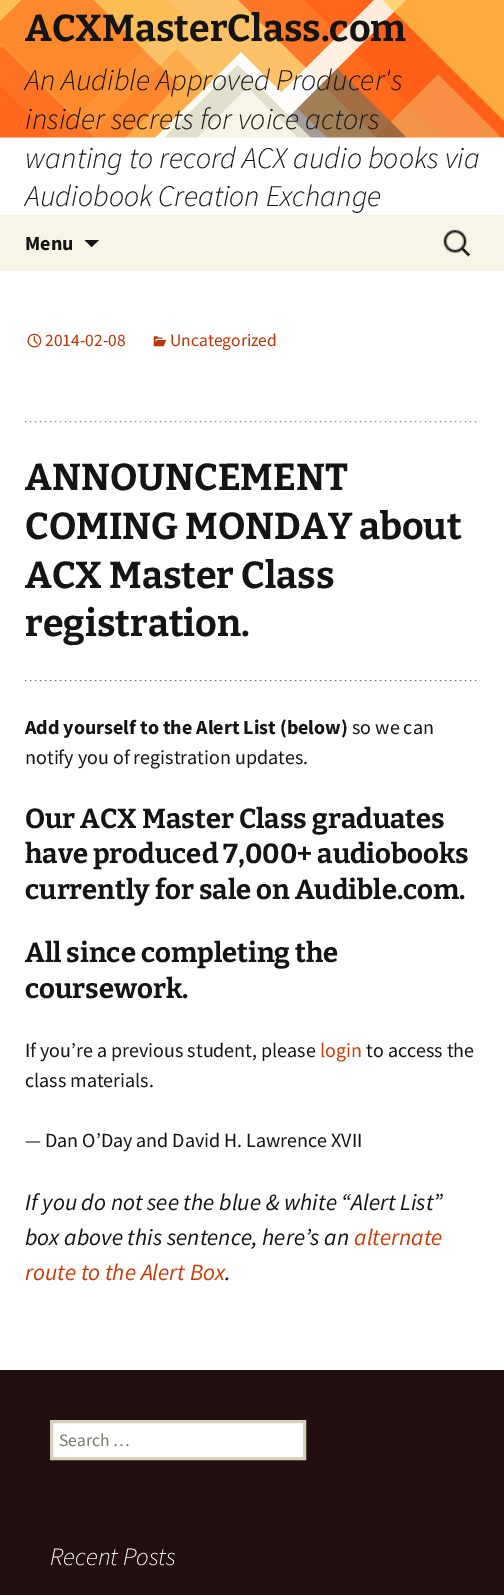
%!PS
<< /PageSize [504 1595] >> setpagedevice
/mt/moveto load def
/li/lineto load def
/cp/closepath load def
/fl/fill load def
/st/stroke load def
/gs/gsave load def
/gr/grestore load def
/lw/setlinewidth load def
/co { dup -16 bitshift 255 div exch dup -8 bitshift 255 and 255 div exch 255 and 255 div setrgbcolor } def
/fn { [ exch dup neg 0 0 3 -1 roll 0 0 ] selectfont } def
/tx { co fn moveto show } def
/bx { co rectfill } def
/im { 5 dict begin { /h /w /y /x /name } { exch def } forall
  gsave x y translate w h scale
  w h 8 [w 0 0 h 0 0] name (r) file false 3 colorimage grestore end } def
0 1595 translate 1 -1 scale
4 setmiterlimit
0 0 504 1595 16#FFFFFF bx
(media/1.raw) 0 0 504 138 im
0 215 504 56 16#F7F5E7 bx
16#141412 co
84.5 240 mt 91.5 247 li 99 240 li cp fl
(media/2.raw) 443 229 28 28 im
(media/3.raw) 27 333 15 15 im
(media/4.raw) 153 336 14 11 im
(media/5.raw) 25 421 455 2 im
(media/6.raw) 25 680 455 2 im
0 1370 504 225 16#220E10 bx
16#FFFFFF co
51.5 1421.5 mt 304.5 1421.5 li 304.5 1458.5 li 51.5 1458.5 li cp gs fl gr
16#D4D0BA co
3 lw
st
(ACXMasterClass.com) 25 41 /Bitter-Thin 37.5 16#141412 tx
(An Audible Approved Producer's) 25 90 /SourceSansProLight-LightItalic 30 16#141412 tx
(insider secrets for voice actors) 25 129 /SourceSansProLight-LightItalic 30 16#141412 tx
(wanting to record ACX audio books via) 25 168 /SourceSansProLight-LightItalic 30 16#141412 tx
(Audiobook Creation Exchange) 25 206 /SourceSansProLight-LightItalic 30 16#141412 tx
(Menu) 25 250 /SourceSansPro-Bold 20 16#141412 tx
(2014-02-08) 45 346 /SourceSansPro-Regular 17.5 16#BC360A tx
(Uncategorized) 170 346 /SourceSansPro-Regular 17.5 16#BC360A tx
(ANNOUNCEMENT) 25 490 /Bitter-Thin 37.5 16#141412 tx
(COMING MONDAY about) 25 539 /Bitter-Thin 37.5 16#141412 tx
(ACX Master Class) 25 588 /Bitter-Thin 37.5 16#141412 tx
(registration.) 25 636 /Bitter-Thin 37.5 16#141412 tx
(Add yourself to the Alert List \(below\)) 25 734 /SourceSansPro-Bold 20 16#141412 tx
(so we can) 352 734 /SourceSansPro-Regular 20 16#141412 tx
(notify you of registration updates.) 25 764 /SourceSansPro-Regular 20 16#141412 tx
(Our ACX Master Class graduates) 25 828 /Bitter-Thin 27.5 16#141412 tx
(have produced 7,000+ audiobooks) 25 863 /Bitter-Thin 27.5 16#141412 tx
(currently for sale on Audible.com.) 25 899 /Bitter-Thin 27.5 16#141412 tx
(All since completing the) 25 962 /Bitter-Thin 27.5 16#141412 tx
(coursework.) 25 998 /Bitter-Thin 27.5 16#141412 tx
(If you’re a previous student, please) 25 1057 /SourceSansPro-Regular 20 16#141412 tx
(login) 320 1057 /SourceSansPro-Regular 20 16#CA3C08 tx
(to access the) 366 1057 /SourceSansPro-Regular 20 16#141412 tx
(class materials.) 25 1087 /SourceSansPro-Regular 20 16#141412 tx
(— Dan O’Day and David H. Lawrence XVII) 25 1147 /SourceSansPro-Regular 20 16#141412 tx
(If you do not see the blue & white “Alert List”) 25 1210 /SourceSansPro-Italic 23.3 16#141412 tx
(box above this sentence, here’s an) 25 1245 /SourceSansPro-Italic 23.3 16#141412 tx
(alternate) 354 1245 /SourceSansPro-Italic 23.3 16#CA3C08 tx
(route to the Alert Box) 25 1280 /SourceSansPro-Italic 23.3 16#CA3C08 tx
(.) 225 1280 /SourceSansPro-Italic 23.3 16#141412 tx
(Search …) 59 1446 /SourceSansPro-Regular 17.5 16#7D7B6D tx
(Recent Posts) 50 1565 /SourceSansProLight-LightItalic 25 16#FFFFFF tx
showpage
